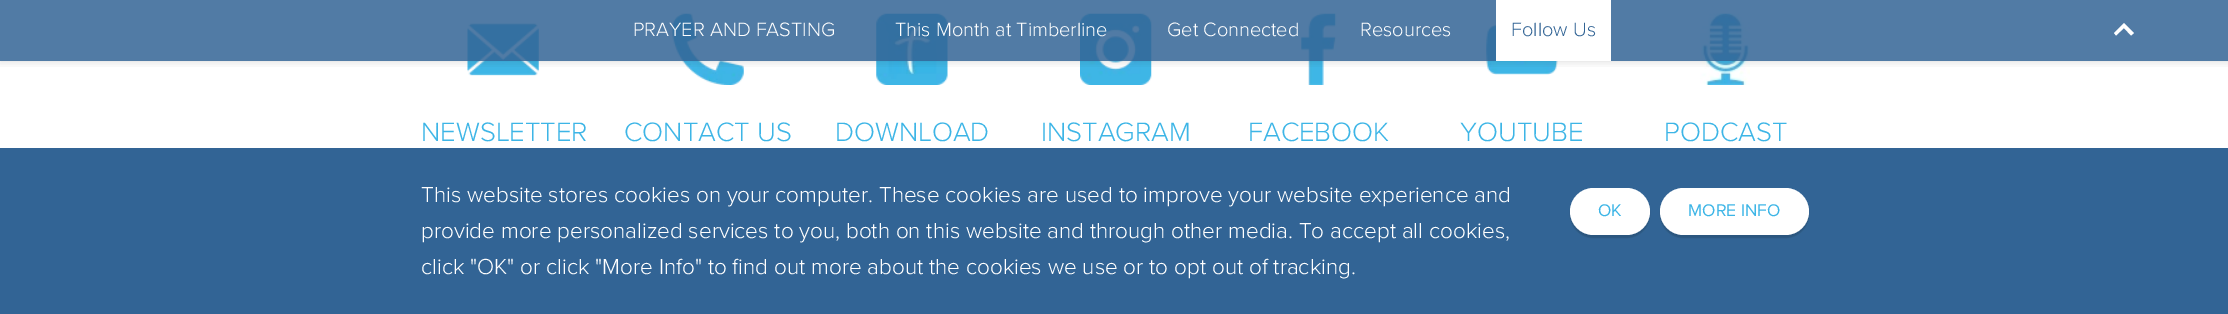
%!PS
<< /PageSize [2228 314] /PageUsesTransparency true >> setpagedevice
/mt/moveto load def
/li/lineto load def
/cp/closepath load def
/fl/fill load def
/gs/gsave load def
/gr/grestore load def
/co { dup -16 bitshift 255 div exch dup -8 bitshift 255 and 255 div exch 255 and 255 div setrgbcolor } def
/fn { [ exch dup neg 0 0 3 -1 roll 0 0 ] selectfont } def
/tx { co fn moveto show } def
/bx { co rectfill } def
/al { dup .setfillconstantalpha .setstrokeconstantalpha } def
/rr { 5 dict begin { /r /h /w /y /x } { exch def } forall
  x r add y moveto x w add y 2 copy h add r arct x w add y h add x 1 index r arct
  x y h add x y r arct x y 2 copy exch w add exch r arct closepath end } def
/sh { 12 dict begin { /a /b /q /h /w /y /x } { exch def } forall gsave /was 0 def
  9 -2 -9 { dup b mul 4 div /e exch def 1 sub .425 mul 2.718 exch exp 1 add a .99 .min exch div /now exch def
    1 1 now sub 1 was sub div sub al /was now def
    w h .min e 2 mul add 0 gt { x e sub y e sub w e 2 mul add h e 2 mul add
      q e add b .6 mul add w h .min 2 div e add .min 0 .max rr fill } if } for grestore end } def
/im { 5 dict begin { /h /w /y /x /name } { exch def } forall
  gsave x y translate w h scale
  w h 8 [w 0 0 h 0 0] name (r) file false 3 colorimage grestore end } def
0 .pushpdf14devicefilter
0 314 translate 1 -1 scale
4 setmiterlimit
0 0 2228 314 16#FFFFFF bx
(media/1.raw) 467 23 72 53 im
(media/2.raw) 672 13 72 72 im
(media/3.raw) 876 13 72 72 im
(media/4.raw) 1080 13 72 72 im
(media/5.raw) 1301 13 36 72 im
(media/6.raw) 1486 24 72 51 im
(media/7.raw) 1700 13 50 72 im
gs
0 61 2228 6 rectclip
16#000000 co
0 0 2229 61 0 5 .15 sh
gr
0.85 al
0 0 2228 61 16#326495 bx
1 al
1496 0 115 61 16#FFFFFF bx
2114 33 mt 2116 35.5 li 2124 28 li 2131 35.5 li 2134 33 li 2124 23 li cp fl
0 148 2228 166 16#326495 bx
16#000000 co
1570 190 80 48 24 .5 .15 sh
16#FFFFFF co
1570 188 80 47 23.5 rr fl
16#000000 co
1660 190 149 48 24 .5 .15 sh
16#FFFFFF co
1660 188 149 47 23.5 rr fl
(PRAYER AND FASTING) 633 36 /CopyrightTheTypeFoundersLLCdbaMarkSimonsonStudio-Light 20 16#FFFFFF tx
(This Month at Timberline) 895 36 /CopyrightTheTypeFoundersLLCdbaMarkSimonsonStudio-Light 20 16#FFFFFF tx
(Get Connected) 1167 36 /CopyrightTheTypeFoundersLLCdbaMarkSimonsonStudio-Light 20 16#FFFFFF tx
(Resources) 1360 36 /CopyrightTheTypeFoundersLLCdbaMarkSimonsonStudio-Light 20 16#FFFFFF tx
(Follow Us) 1511 36 /CopyrightTheTypeFoundersLLCdbaMarkSimonsonStudio-Light 20 16#326495 tx
(NEWSLETTER) 421 141 /CopyrightTheTypeFoundersLLCdbaMarkSimonsonStudio-Light 27.5 16#3DB5E6 tx
(CONTACT US) 624 141 /CopyrightTheTypeFoundersLLCdbaMarkSimonsonStudio-Light 27.5 16#3DB5E6 tx
(DOWNLOAD) 835 141 /CopyrightTheTypeFoundersLLCdbaMarkSimonsonStudio-Light 27.5 16#3DB5E6 tx
(INSTAGRAM) 1041 141 /CopyrightTheTypeFoundersLLCdbaMarkSimonsonStudio-Light 27.5 16#3DB5E6 tx
(FACEBOOK) 1248 141 /CopyrightTheTypeFoundersLLCdbaMarkSimonsonStudio-Light 27.5 16#3DB5E6 tx
(YOUTUBE) 1460 141 /CopyrightTheTypeFoundersLLCdbaMarkSimonsonStudio-Light 27.5 16#3DB5E6 tx
(PODCAST) 1664 141 /CopyrightTheTypeFoundersLLCdbaMarkSimonsonStudio-Light 27.5 16#3DB5E6 tx
(This website stores cookies on your computer. These cookies are used to improve your website experience and) 421 202 /CopyrightTheTypeFoundersLLCdbaMarkSimonsonStudio-Light 22.5 16#FFFFFF tx
(provide more personalized services to you, both on this website and through other media. To accept all cookies,) 421 238 /CopyrightTheTypeFoundersLLCdbaMarkSimonsonStudio-Light 22.5 16#FFFFFF tx
(click "OK" or click "More Info" to find out more about the cookies we use or to opt out of tracking.) 421 274 /CopyrightTheTypeFoundersLLCdbaMarkSimonsonStudio-Light 22.5 16#FFFFFF tx
(OK) 1598 216 /CopyrightTheTypeFoundersLLCdbaMarkSimonsonStudio-Regular 17.5 16#3DB5E6 tx
(MORE INFO) 1688 216 /CopyrightTheTypeFoundersLLCdbaMarkSimonsonStudio-Regular 17.5 16#3DB5E6 tx
.poppdf14devicefilter showpage
